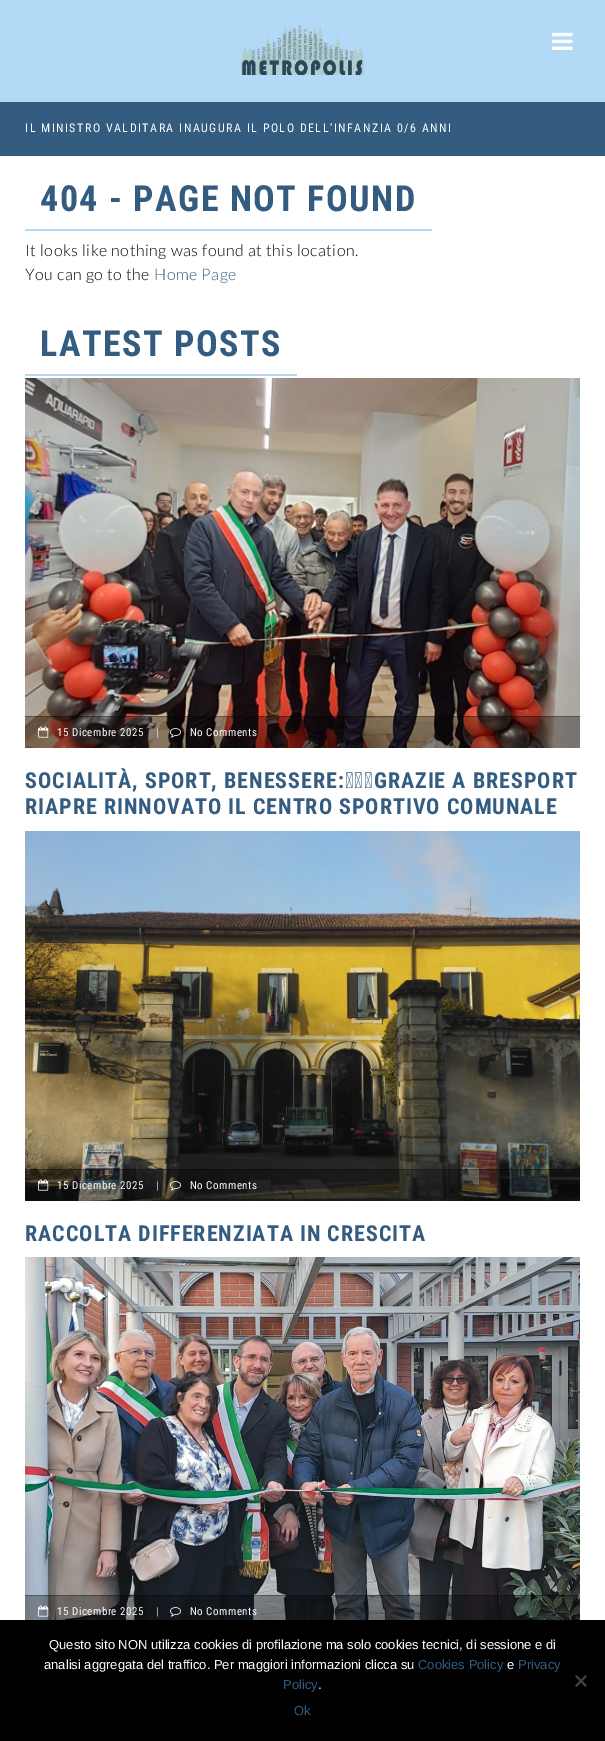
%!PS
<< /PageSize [605 1741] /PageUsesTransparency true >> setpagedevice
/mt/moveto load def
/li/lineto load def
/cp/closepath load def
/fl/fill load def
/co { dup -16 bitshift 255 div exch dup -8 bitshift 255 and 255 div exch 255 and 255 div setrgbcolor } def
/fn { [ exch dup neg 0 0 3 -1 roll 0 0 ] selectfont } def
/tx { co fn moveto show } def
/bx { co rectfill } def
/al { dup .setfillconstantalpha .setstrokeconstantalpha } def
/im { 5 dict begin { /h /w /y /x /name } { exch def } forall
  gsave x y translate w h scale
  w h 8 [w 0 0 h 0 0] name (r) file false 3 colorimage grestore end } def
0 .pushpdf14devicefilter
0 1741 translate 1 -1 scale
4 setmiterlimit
0 0 605 1741 16#FFFFFF bx
0 0 605 102 16#B2D9F6 bx
(media/1.raw) 241 25 123 50 im
(media/2.raw) 552 32 21 18 im
0 102 605 54 16#335C80 bx
25 229 407 2 16#B2D9F6 bx
25 374 272 2 16#B2D9F6 bx
(media/3.raw) 25 378 555 370 im
0.3 al
25 716 555 32 16#000000 bx
25 716 555 1 16#000000 bx
1 al
(media/4.raw) 38 726 11 12 im
(media/5.raw) 170 728 11 10 im
(media/6.raw) 25 831 555 370 im
0.3 al
25 1169 555 32 16#000000 bx
25 1169 555 1 16#000000 bx
1 al
(media/7.raw) 38 1179 11 12 im
(media/8.raw) 170 1181 11 10 im
(media/9.raw) 25 1257 555 363 im
0.3 al
25 1595 555 25 16#000000 bx
25 1595 555 1 16#000000 bx
1 al
(media/10.raw) 38 1605 11 12 im
(media/11.raw) 170 1607 11 10 im
0 1620 605 121 16#000000 bx
16#404040 co
585.5 1675 mt 587 1676.5 li 576.5 1687 li 575 1685.5 li cp fl
575 1676.5 mt 576.5 1675 li 587 1685.5 li 585.5 1687 li cp fl
/RobotoCondensed-Regular 12 fn
16#FFFFFF co
25 132 mt 1.5 0 (IL MINISTRO VALDITARA INAUGURA IL POLO DELL’INFANZIA 0/6 ANNI) ashow
/RobotoCondensed-Bold 36 fn
16#335C80 co
40 211 mt 1.5 0 (404 - PAGE NOT FOUND) ashow
/Lato-Light 16 fn
16#000000 co
25 256 mt .5 0 (It looks like nothing was found at this location.) ashow
25 280 mt .5 0 (You can go to the) ashow
16#335C80 co
154 280 mt .5 0 (Home Page) ashow
/RobotoCondensed-Bold 36 fn
40 356 mt 1.5 0 (LATEST POSTS) ashow
/RobotoCondensed-Regular 11 fn
16#FFFFFF co
57 736 mt .5 0 (15 Dicembre 2025) ashow
(|) 156 736 /RobotoCondensed-Regular 11 16#E7E4E0 tx
16#FFFFFF co
190 736 mt .5 0 (No Comments) ashow
/RobotoCondensed-Bold 22 fn
16#335C80 co
25 788 mt 1 0 (SOCIALITÀ, SPORT, BENESSERE: GRAZIE A BRESPORT) ashow
25 814 mt 1 0 (RIAPRE RINNOVATO IL CENTRO SPORTIVO COMUNALE) ashow
/RobotoCondensed-Regular 11 fn
16#FFFFFF co
57 1189 mt .5 0 (15 Dicembre 2025) ashow
(|) 156 1189 /RobotoCondensed-Regular 11 16#D2D2D2 tx
16#FFFFFF co
190 1189 mt .5 0 (No Comments) ashow
/RobotoCondensed-Bold 22 fn
16#335C80 co
25 1241 mt 1 0 (RACCOLTA DIFFERENZIATA IN CRESCITA) ashow
/RobotoCondensed-Regular 11 fn
16#FFFFFF co
57 1615 mt .5 0 (15 Dicembre 2025) ashow
(|) 156 1615 /RobotoCondensed-Regular 11 16#D2D2D2 tx
16#FFFFFF co
190 1615 mt .5 0 (No Comments) ashow
(Questo sito NON utilizza cookies di profilazione ma solo cookies tecnici, di sessione e di) 49 1649 /LiberationSans-Regular 13 16#FFFFFF tx
(analisi aggregata del traffico. Per maggiori informazioni clicca su) 44 1669 /LiberationSans-Regular 13 16#FFFFFF tx
(Cookies Policy) 418 1669 /LiberationSans-Regular 13 16#335C80 tx
(e) 507 1669 /LiberationSans-Regular 13 16#FFFFFF tx
(Privacy) 518 1669 /LiberationSans-Regular 13 16#335C80 tx
(Policy) 283 1689 /LiberationSans-Regular 13 16#335C80 tx
(.) 318 1689 /LiberationSans-Regular 13 16#FFFFFF tx
(Ok) 294 1715 /LiberationSans-Regular 13 16#335C80 tx
.poppdf14devicefilter showpage
